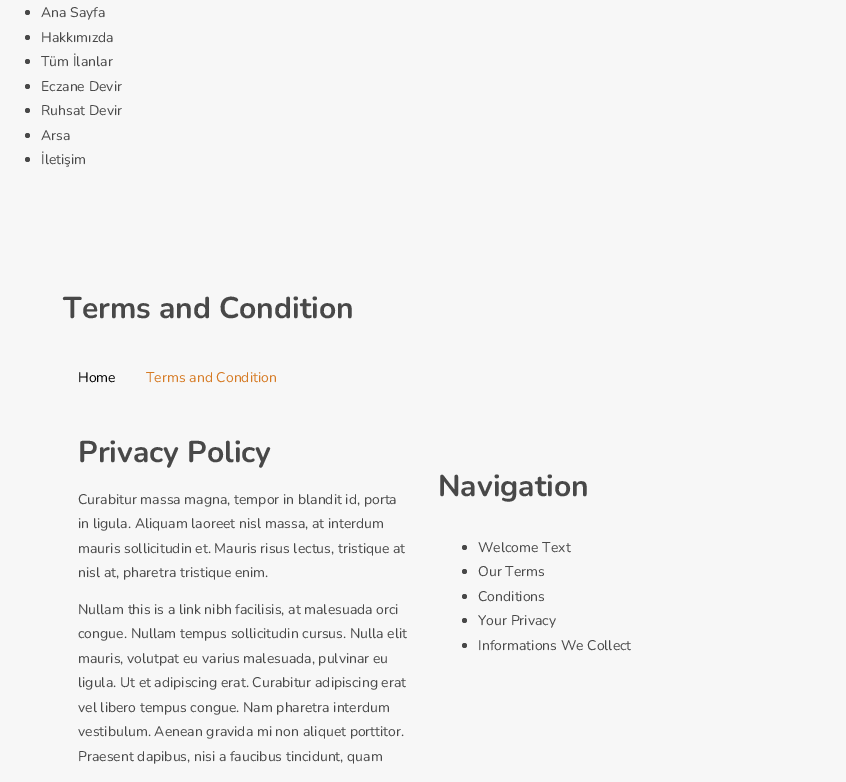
%!PS
<< /PageSize [846 782] >> setpagedevice
/fl/fill load def
/co { dup -16 bitshift 255 div exch dup -8 bitshift 255 and 255 div exch 255 and 255 div setrgbcolor } def
/fn { [ exch dup neg 0 0 3 -1 roll 0 0 ] selectfont } def
/tx { co fn moveto show } def
/bx { co rectfill } def
/ci { newpath 0 360 arc closepath } def
0 782 translate 1 -1 scale
4 setmiterlimit
0 0 846 782 16#F7F7F7 bx
16#484848 co
27.5 12.5 2.5 ci fl
27.5 37.5 2.5 ci fl
27.5 61.5 2.5 ci fl
27.5 86.5 2.5 ci fl
27.5 110.5 2.5 ci fl
27.5 135.5 2.5 ci fl
27.5 159.5 2.5 ci fl
464.5 547.5 2.5 ci fl
464.5 571.5 2.5 ci fl
464.5 596.5 2.5 ci fl
464.5 620.5 2.5 ci fl
464.5 645.5 2.5 ci fl
(Ana Sayfa) 41 17 /Nunito-Regular 14 16#484848 tx
(Hakkımızda) 41 42 /Nunito-Regular 14 16#484848 tx
(Tüm İlanlar) 41 66 /Nunito-Regular 14 16#484848 tx
(Eczane Devir) 41 91 /Nunito-Regular 14 16#484848 tx
(Ruhsat Devir) 41 115 /Nunito-Regular 14 16#484848 tx
(Arsa) 41 140 /Nunito-Regular 14 16#484848 tx
(İletişim) 41 164 /Nunito-Regular 14 16#484848 tx
(Terms and Condition) 63 318 /Nunito-Bold 30 16#484848 tx
(Home) 78 382 /Nunito-Regular 14 16#000000 tx
(Terms and Condition) 146 382 /Nunito-Regular 14 16#D67A23 tx
(Privacy Policy) 78 462 /Nunito-Bold 30 16#484848 tx
(Curabitur massa magna, tempor in blandit id, porta) 78 504 /Nunito-Regular 14 16#484848 tx
(in ligula. Aliquam laoreet nisl massa, at interdum) 78 528 /Nunito-Regular 14 16#484848 tx
(mauris sollicitudin et. Mauris risus lectus, tristique at) 78 553 /Nunito-Regular 14 16#484848 tx
(nisl at, pharetra tristique enim.) 78 577 /Nunito-Regular 14 16#484848 tx
(Nullam this is a link nibh facilisis, at malesuada orci) 78 614 /Nunito-Regular 14 16#484848 tx
(congue. Nullam tempus sollicitudin cursus. Nulla elit) 78 638 /Nunito-Regular 14 16#484848 tx
(mauris, volutpat eu varius malesuada, pulvinar eu) 78 663 /Nunito-Regular 14 16#484848 tx
(ligula. Ut et adipiscing erat. Curabitur adipiscing erat) 78 687 /Nunito-Regular 14 16#484848 tx
(vel libero tempus congue. Nam pharetra interdum) 78 712 /Nunito-Regular 14 16#484848 tx
(vestibulum. Aenean gravida mi non aliquet porttitor.) 78 736 /Nunito-Regular 14 16#484848 tx
(Praesent dapibus, nisi a faucibus tincidunt, quam) 78 761 /Nunito-Regular 14 16#484848 tx
(Navigation) 438 496 /Nunito-Bold 30 16#484848 tx
(Welcome Text) 478 552 /Nunito-Regular 14 16#484848 tx
(Our Terms) 478 576 /Nunito-Regular 14 16#484848 tx
(Conditions) 478 601 /Nunito-Regular 14 16#484848 tx
(Your Privacy) 478 625 /Nunito-Regular 14 16#484848 tx
(Informations We Collect) 478 650 /Nunito-Regular 14 16#484848 tx
showpage
